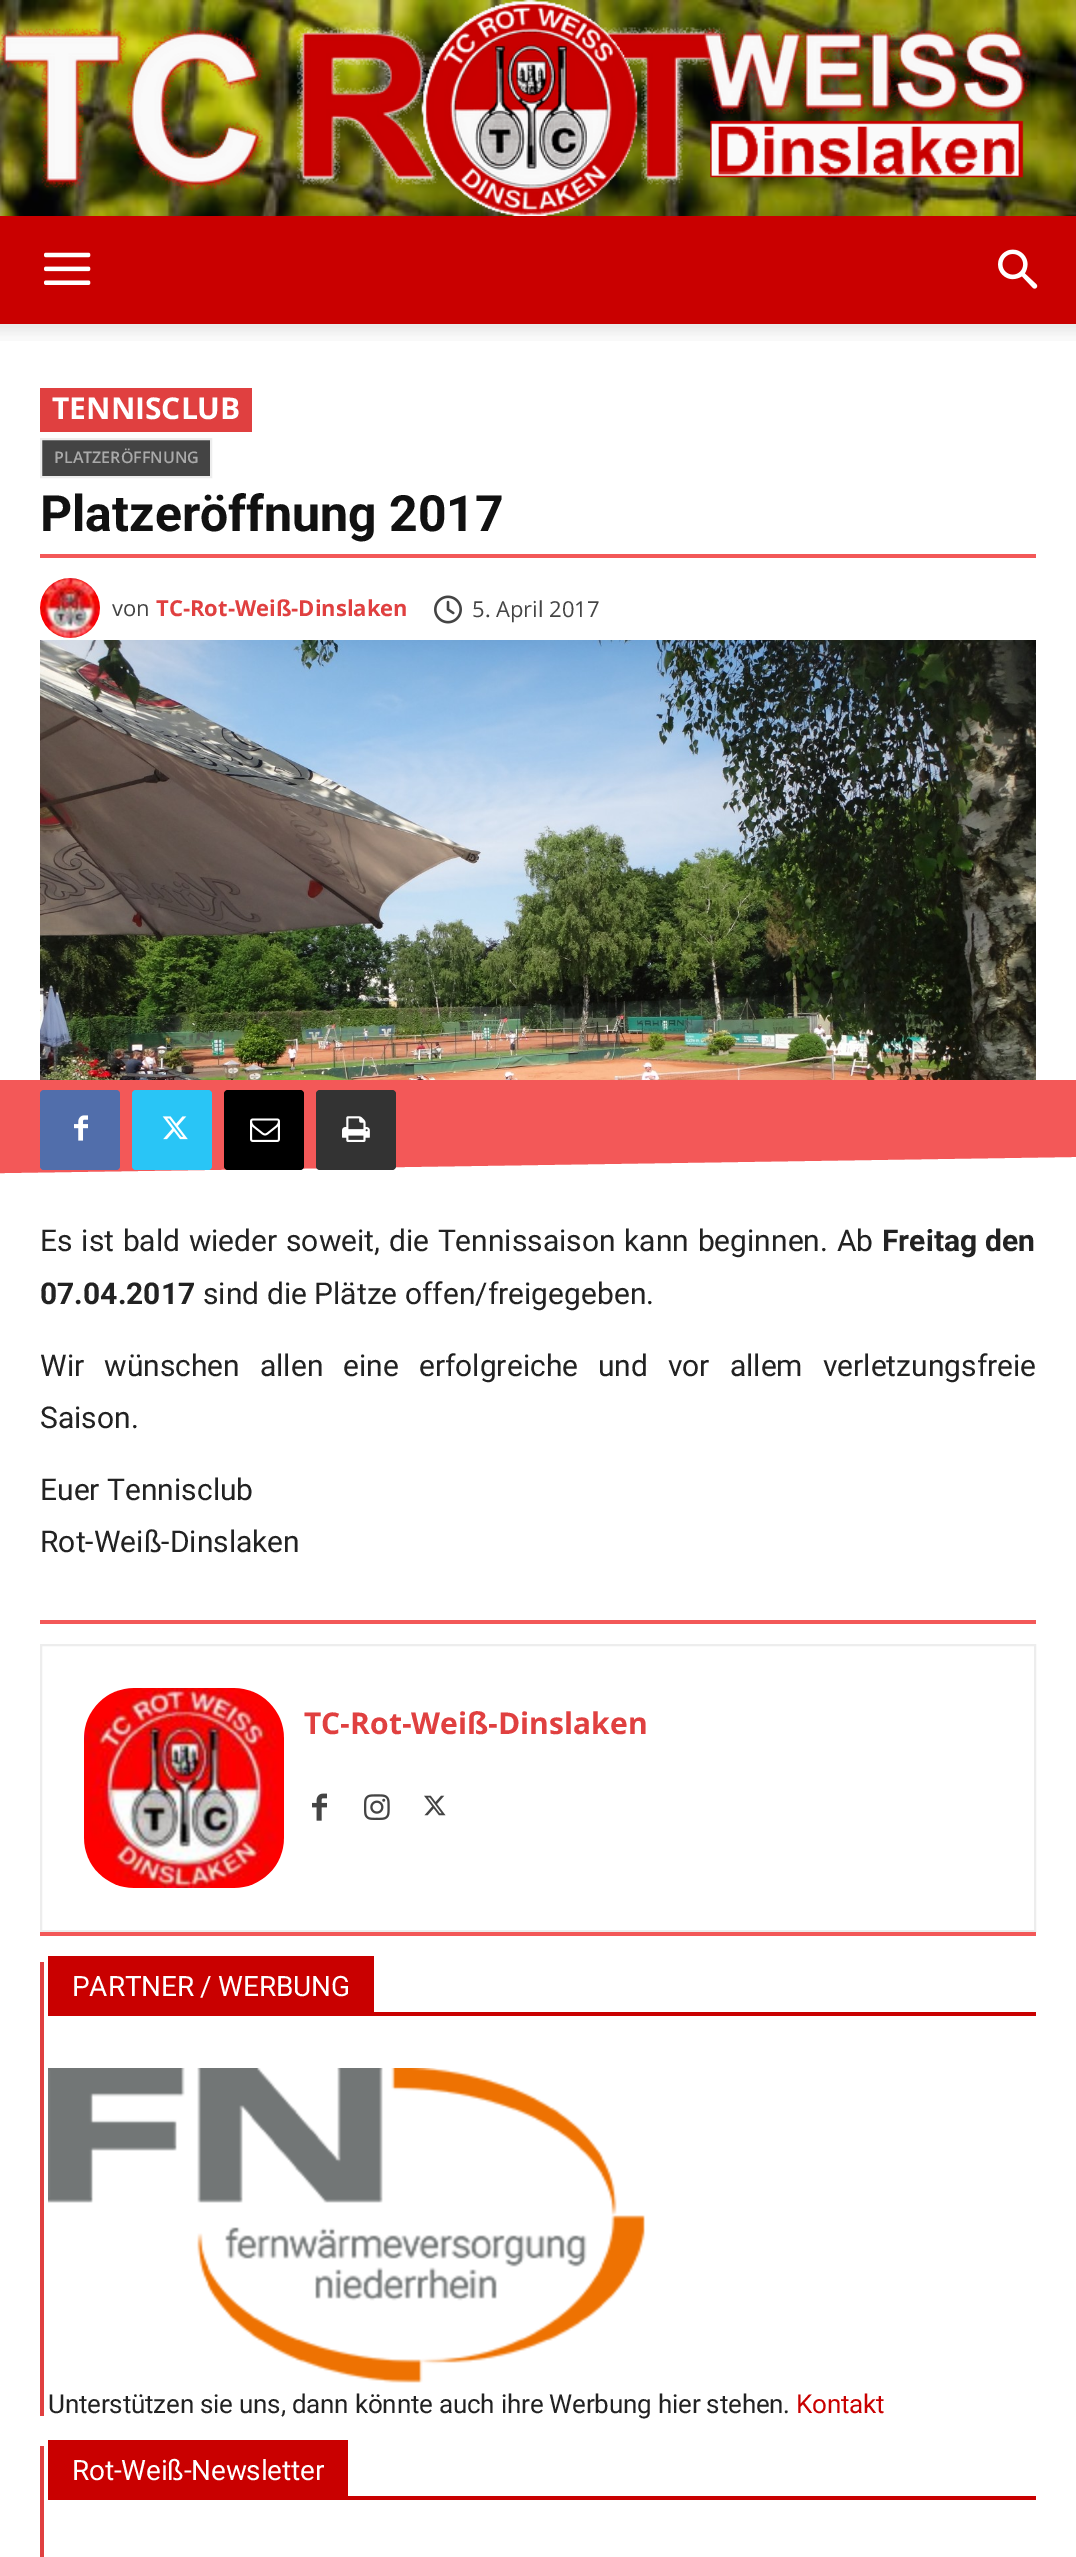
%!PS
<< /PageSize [1076 2557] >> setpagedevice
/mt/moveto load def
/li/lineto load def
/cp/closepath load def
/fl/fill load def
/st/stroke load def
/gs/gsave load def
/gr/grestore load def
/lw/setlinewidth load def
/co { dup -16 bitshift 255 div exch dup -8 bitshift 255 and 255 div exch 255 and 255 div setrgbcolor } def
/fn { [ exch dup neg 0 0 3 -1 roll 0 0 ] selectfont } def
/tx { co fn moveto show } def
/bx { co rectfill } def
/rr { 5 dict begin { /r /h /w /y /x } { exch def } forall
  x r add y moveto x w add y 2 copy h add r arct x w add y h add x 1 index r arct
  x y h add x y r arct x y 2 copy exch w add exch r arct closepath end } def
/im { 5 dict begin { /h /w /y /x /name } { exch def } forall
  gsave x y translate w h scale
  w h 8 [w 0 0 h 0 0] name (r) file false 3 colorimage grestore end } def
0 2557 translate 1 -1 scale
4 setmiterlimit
0 0 1076 2557 16#FFFFFF bx
(media/1.raw) 0 0 1076 216 im
(media/2.raw) 0 0 1031 216 im
0 216 1076 108 16#C90000 bx
(media/3.raw) 44 252 47 33 im
(media/4.raw) 998 249 40 40 im
(media/5.raw) 0 324 1076 17 im
40 388 212 44 16#E04040 bx
16#444444 co
41 439 mt 211 439 li 211 477 li 41 477 li cp gs fl gr
16#EDEDED co
2 lw
st
40 554 996 4 16#F35858 bx
(media/6.raw) 40 578 60 60 im
(media/7.raw) 434 595 28 29 im
(media/8.raw) 40 640 996 440 im
0 1080 1076 31 16#F35858 bx
-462 1111 mt -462 1180 li 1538 1150 li 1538 1111 li cp fl
16#516EAB co
40 1090 80 80 4 rr fl
(media/9.raw) 74 1115 14 26 im
16#29C5F6 co
132 1090 80 80 4 rr fl
(media/10.raw) 162 1116 26 24 im
16#000000 co
224 1090 80 80 4 rr fl
(media/11.raw) 250 1118 30 24 im
16#333333 co
316 1090 80 80 4 rr fl
(media/12.raw) 342 1116 28 26 im
40 1620 996 4 16#F35858 bx
16#EDEDED co
41 1645 994 286 rectstroke
(media/13.raw) 84 1688 200 200 im
(media/14.raw) 312 1793 15 28 im
(media/15.raw) 364 1794 26 26 im
(media/16.raw) 424 1795 22 21 im
40 1932 996 4 16#F35858 bx
40 1962 4 454 16#E04040 bx
48 2012 988 4 16#C90000 bx
48 1956 326 56 16#C90000 bx
(media/17.raw) 48 2068 597 315 im
40 2446 4 111 16#E04040 bx
48 2496 988 4 16#C90000 bx
48 2440 300 56 16#C90000 bx
(TENNISCLUB) 52 419 /OpenSans-Bold 30 16#FFFFFF tx
(PLATZERÖFFNUNG) 54 463 /OpenSans-SemiBold 16 16#AAAAAA tx
(Platzeröffnung 2017) 40 531 /Roboto-Bold 50 16#111111 tx
(von) 112 616 /OpenSans-Regular 22 16#444444 tx
(TC-Rot-Weiß-Dinslaken) 156 616 /OpenSans-Bold 22 16#E04040 tx
(5. April 2017) 472 617 /OpenSans-Regular 22 16#444444 tx
/Roboto-Regular 30 fn
16#222222 co
40 1251 mt 1.25 0 32 (Es ist bald wieder soweit, die Tennissaison kann beginnen. Ab) widthshow
/Roboto-Bold 30 fn
882 1251 mt 1 0 32 (Freitag den) widthshow
(07.04.2017) 40 1304 /Roboto-Bold 30 16#222222 tx
(sind die Plätze offen/freigegeben.) 203 1304 /Roboto-Regular 30 16#222222 tx
40 1376 mt 12.5 0 32 (Wir wünschen allen eine erfolgreiche und vor allem verletzungsfreie) widthshow
(Saison.) 40 1428 /Roboto-Regular 30 16#222222 tx
(Euer Tennisclub) 40 1500 /Roboto-Regular 30 16#222222 tx
(Rot-Weiß-Dinslaken) 40 1552 /Roboto-Regular 30 16#222222 tx
(TC-Rot-Weiß-Dinslaken) 304 1734 /OpenSans-Bold 30 16#E04040 tx
/Roboto-Regular 28 fn
16#FFFFFF co
72 1996 mt -.2 0 (PARTNER / WERBUNG) ashow
/Roboto-Regular 26 fn
16#222222 co
48 2413 mt -.2 0 (Unterstützen sie uns, dann könnte auch ihre Werbung hier stehen.) ashow
16#C90000 co
796 2413 mt -.2 0 (Kontakt) ashow
/Roboto-Regular 28 fn
16#FFFFFF co
72 2480 mt -.2 0 (Rot-Weiß-Newsletter) ashow
showpage
